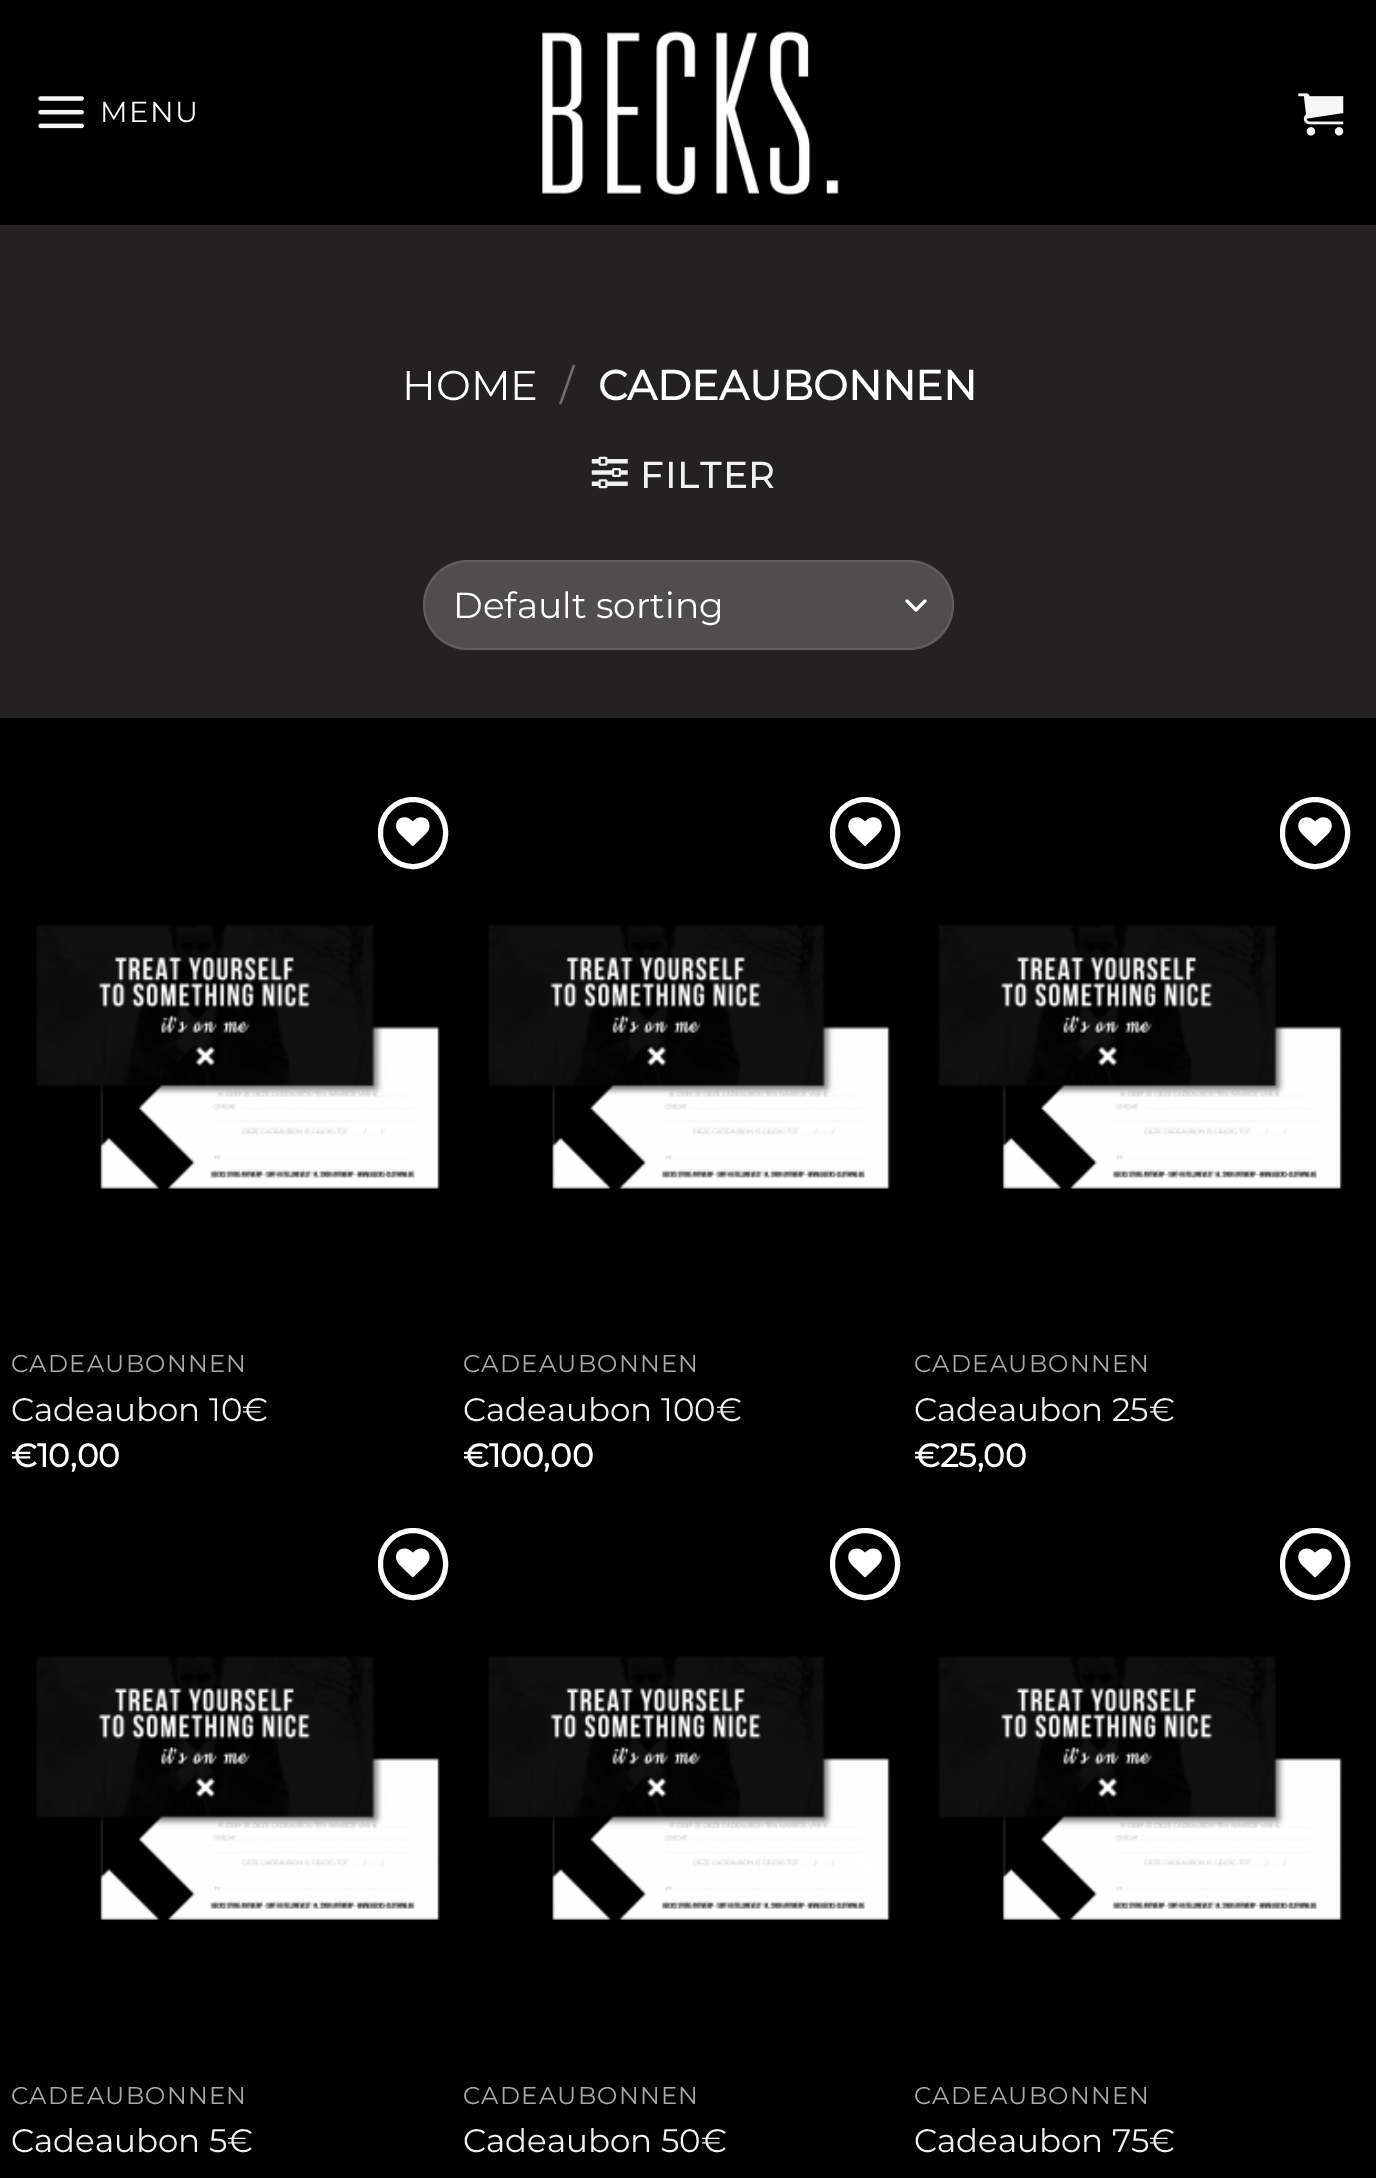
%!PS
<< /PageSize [1376 2178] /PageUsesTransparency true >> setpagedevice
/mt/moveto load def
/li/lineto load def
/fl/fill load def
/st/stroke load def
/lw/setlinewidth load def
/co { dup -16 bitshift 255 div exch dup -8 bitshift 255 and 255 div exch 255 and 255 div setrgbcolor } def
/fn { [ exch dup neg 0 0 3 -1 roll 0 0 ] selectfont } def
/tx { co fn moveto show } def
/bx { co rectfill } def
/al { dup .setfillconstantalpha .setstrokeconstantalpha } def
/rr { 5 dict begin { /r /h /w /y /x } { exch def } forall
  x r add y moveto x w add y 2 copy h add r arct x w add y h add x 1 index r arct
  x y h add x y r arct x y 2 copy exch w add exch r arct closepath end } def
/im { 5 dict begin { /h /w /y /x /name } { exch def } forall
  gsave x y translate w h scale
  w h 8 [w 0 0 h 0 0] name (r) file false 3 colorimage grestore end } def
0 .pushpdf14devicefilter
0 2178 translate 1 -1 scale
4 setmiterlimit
0 0 1376 2178 16#000000 bx
(media/1.raw) 38 96 46 33 im
(media/2.raw) 542 31 297 164 im
(media/3.raw) 1298 93 46 43 im
0 225 1376 493 16#232121 bx
(media/4.raw) 591 456 37 33 im
16#4F4D4D co
423 560 531 90 45 rr fl
16#FFFFFF co
3 lw
1 setlinecap
1 setlinejoin
907 601 mt 916 610 li 925 601 li st
0.09 al
2 lw
0 setlinecap
0 setlinejoin
424 561 529 88 44 rr st
1 al
5 lw
380.5 799.5 65 67 32.5 rr st
(media/5.raw) 396 817 34 29 im
(media/6.raw) 36 924 404 265 im
832.5 799.5 65 67 32.5 rr st
(media/7.raw) 848 817 34 29 im
(media/8.raw) 488 924 403 265 im
1282.5 799.5 65 67 32.5 rr st
(media/7.raw) 1298 817 34 29 im
(media/9.raw) 938 924 405 265 im
380.5 1530.5 65 67 32.5 rr st
(media/10.raw) 396 1548 34 30 im
(media/11.raw) 36 1656 404 265 im
832.5 1530.5 65 67 32.5 rr st
(media/12.raw) 848 1548 34 30 im
(media/13.raw) 488 1656 403 265 im
1282.5 1530.5 65 67 32.5 rr st
(media/12.raw) 1298 1548 34 30 im
(media/14.raw) 938 1656 405 265 im
/Montserrat-Thin 29 fn
16#F7F7F7 co
100 122 mt 1.5 0 (MENU) ashow
(HOME) 402 400 /Montserrat-Thin 41.5 16#FFFFFF tx
(/) 560 400 /Montserrat-Thin 41.5 16#706F6F tx
(CADEAUBONNEN) 598 400 /Montserrat-Bold 41.5 16#FFFFFF tx
/Montserrat-Bold 36 fn
16#F1F1F1 co
640 488 mt 1.75 0 (FILTER) ashow
(Default sorting) 453 618 /Montserrat-Thin 36 16#FFFFFF tx
/Montserrat-Thin 24.25 fn
16#A9A9A9 co
11 1372 mt 1.25 0 (CADEAUBONNEN) ashow
(Cadeaubon 10€) 11 1421 /Montserrat-Thin 32.5 16#F1F1F1 tx
(€10,00) 11 1467 /Montserrat-Bold 32.5 16#FFFFFF tx
/Montserrat-Thin 24.25 fn
16#A9A9A9 co
463 1372 mt 1.25 0 (CADEAUBONNEN) ashow
(Cadeaubon 100€) 463 1421 /Montserrat-Thin 32.5 16#F1F1F1 tx
(€100,00) 463 1467 /Montserrat-Bold 32.5 16#FFFFFF tx
/Montserrat-Thin 24.25 fn
16#A9A9A9 co
914 1372 mt 1.25 0 (CADEAUBONNEN) ashow
(Cadeaubon 25€) 914 1421 /Montserrat-Thin 32.5 16#F1F1F1 tx
(€25,00) 914 1467 /Montserrat-Bold 32.5 16#FFFFFF tx
/Montserrat-Thin 24.25 fn
16#A9A9A9 co
11 2104 mt 1.25 0 (CADEAUBONNEN) ashow
(Cadeaubon 5€) 11 2152 /Montserrat-Thin 32.5 16#F1F1F1 tx
/Montserrat-Thin 24.25 fn
16#A9A9A9 co
463 2104 mt 1.25 0 (CADEAUBONNEN) ashow
(Cadeaubon 50€) 463 2152 /Montserrat-Thin 32.5 16#F1F1F1 tx
/Montserrat-Thin 24.25 fn
16#A9A9A9 co
914 2104 mt 1.25 0 (CADEAUBONNEN) ashow
(Cadeaubon 75€) 914 2152 /Montserrat-Thin 32.5 16#F1F1F1 tx
.poppdf14devicefilter showpage
